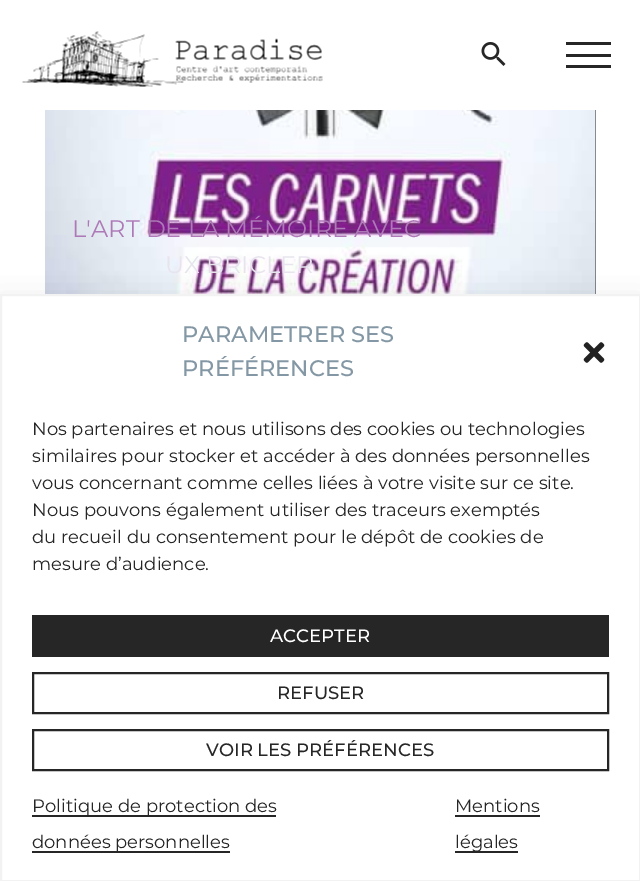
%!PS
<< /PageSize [640 881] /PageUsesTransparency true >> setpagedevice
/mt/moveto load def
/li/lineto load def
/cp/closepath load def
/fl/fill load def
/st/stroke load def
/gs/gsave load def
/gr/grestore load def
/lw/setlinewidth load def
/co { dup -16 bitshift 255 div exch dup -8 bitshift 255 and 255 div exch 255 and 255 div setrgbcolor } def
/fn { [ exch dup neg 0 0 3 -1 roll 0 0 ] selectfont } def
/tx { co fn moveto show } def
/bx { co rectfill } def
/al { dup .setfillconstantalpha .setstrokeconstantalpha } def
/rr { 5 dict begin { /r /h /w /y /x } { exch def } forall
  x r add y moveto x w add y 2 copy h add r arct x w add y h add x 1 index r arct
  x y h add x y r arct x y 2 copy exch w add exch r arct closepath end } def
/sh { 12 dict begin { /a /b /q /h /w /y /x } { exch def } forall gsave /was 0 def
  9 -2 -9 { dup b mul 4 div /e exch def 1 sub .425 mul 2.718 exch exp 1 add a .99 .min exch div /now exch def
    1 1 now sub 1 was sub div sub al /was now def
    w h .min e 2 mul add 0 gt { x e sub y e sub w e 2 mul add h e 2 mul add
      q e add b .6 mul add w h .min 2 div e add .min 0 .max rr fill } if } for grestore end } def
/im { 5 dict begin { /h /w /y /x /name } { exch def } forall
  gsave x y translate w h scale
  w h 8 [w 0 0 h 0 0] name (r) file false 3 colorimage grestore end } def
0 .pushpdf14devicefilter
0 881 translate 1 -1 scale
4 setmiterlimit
0 0 640 881 16#FFFFFF bx
(media/1.raw) 22 31 301 56 im
(media/2.raw) 481 42 25 24 im
566 42 45 3 16#262626 bx
566 54 45 3 16#262626 bx
566 65 45 3 16#262626 bx
595 110 1 184 16#262626 bx
(media/3.raw) 45 110 551 184 im
16#000000 co
0 309 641 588 0 15 .19 sh
16#FFFFFF co
1 295 mt 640 295 li 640 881 li 1 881 li cp gs fl gr
16#F2F2F2 co
2 lw
st
(media/4.raw) 583 342 22 21 im
32 615 577 42 16#262626 bx
33 673 575 40 rectstroke
33 730 575 40 rectstroke
32 815 244 2 16#262626 bx
32 851 198 2 16#262626 bx
455 815 85 2 16#262626 bx
455 851 63 2 16#262626 bx
(L'ART DE LA MÉMOIRE AVEC) 72 237 /Montserrat-Regular 24 16#AD7AB7 tx
(UX BRICLER) 165 273 /Montserrat-Regular 24 16#E7E4EE tx
(PARAMETRER SES) 182 342 /Montserrat-Medium 22.5 16#8497A4 tx
(PRÉFÉRENCES) 182 376 /Montserrat-Medium 22.5 16#8497A4 tx
(Nos partenaires et nous utilisons des cookies ou technologies) 32 435 /Montserrat-Regular 18 16#262626 tx
(similaires pour stocker et accéder à des données personnelles) 32 462 /Montserrat-Regular 18 16#262626 tx
(vous concernant comme celles liées à votre visite sur ce site.) 32 489 /Montserrat-Regular 18 16#262626 tx
(Nous pouvons également utiliser des traceurs exemptés) 32 516 /Montserrat-Regular 18 16#262626 tx
(du recueil du consentement pour le dépôt de cookies de) 32 543 /Montserrat-Regular 18 16#262626 tx
(mesure d’audience.) 32 570 /Montserrat-Regular 18 16#262626 tx
(ACCEPTER) 270 642 /Montserrat-Medium 18 16#FFFFFF tx
(REFUSER) 277 699 /Montserrat-Medium 18 16#262626 tx
(VOIR LES PRÉFÉRENCES) 206 756 /Montserrat-Medium 18 16#262626 tx
(Politique de protection des) 32 812 /Montserrat-Regular 18 16#262626 tx
(données personnelles) 32 848 /Montserrat-Regular 18 16#262626 tx
(Mentions) 455 812 /Montserrat-Regular 18 16#262626 tx
(légales) 455 848 /Montserrat-Regular 18 16#262626 tx
.poppdf14devicefilter showpage
